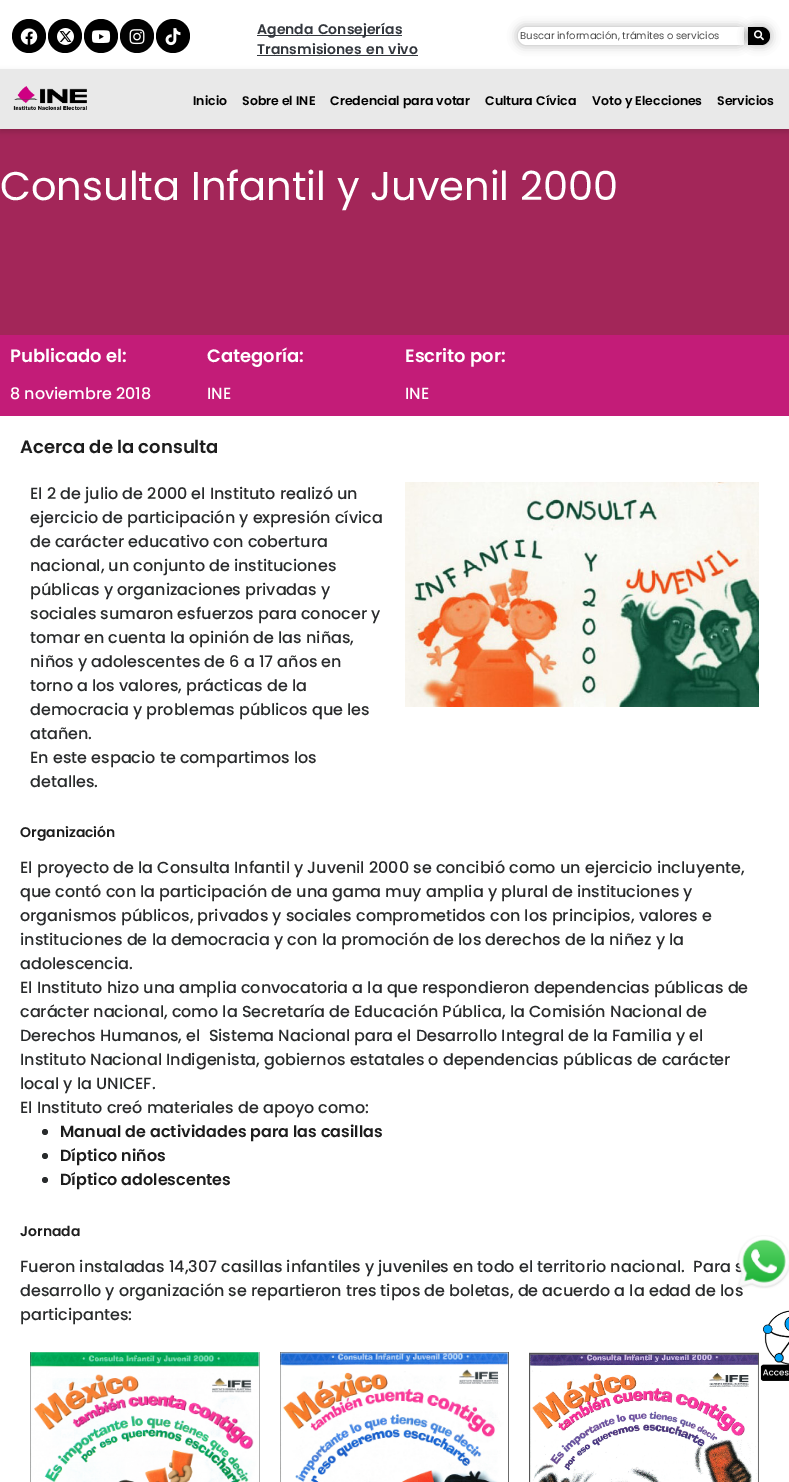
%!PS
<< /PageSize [789 1482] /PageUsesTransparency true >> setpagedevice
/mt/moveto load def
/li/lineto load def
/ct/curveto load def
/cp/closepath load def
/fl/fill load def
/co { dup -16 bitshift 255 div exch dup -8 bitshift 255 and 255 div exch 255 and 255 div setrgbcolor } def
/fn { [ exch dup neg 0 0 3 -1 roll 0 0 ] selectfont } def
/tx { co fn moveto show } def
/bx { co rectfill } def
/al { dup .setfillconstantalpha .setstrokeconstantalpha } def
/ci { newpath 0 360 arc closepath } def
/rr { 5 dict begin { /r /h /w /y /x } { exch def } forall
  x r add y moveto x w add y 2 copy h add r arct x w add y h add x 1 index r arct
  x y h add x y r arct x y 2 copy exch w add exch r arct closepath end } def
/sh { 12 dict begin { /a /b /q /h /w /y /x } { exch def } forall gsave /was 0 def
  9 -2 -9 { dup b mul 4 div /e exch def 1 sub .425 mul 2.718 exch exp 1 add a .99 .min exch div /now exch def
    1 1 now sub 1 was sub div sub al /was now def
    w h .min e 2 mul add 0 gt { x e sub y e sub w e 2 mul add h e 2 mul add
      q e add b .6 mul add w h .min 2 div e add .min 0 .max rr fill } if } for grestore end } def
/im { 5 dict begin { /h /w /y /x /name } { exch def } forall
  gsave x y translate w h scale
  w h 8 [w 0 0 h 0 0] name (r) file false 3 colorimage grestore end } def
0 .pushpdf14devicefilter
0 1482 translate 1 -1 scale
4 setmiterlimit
0 0 789 1482 16#FFFFFF bx
16#000000 co
29 36 17 ci fl
(media/1.raw) 20 28 18 17 im
65 36 17 ci fl
(media/2.raw) 57 28 17 17 im
101 36 17 ci fl
(media/3.raw) 91 30 20 13 im
16#030303 co
137 36 17 ci fl
(media/4.raw) 129 29 16 16 im
16#000000 co
173 36 17 ci fl
(media/5.raw) 165 28 16 18 im
257 35 145 1 16#33373D bx
257 55 161 1 16#33373D bx
16#000000 co
518 27 226 18 9 5 .31 sh
16#FFFFFF co
527 27 mt 744 27 li 744 45 li 527 45 li 522 45 518 41 518 36 ct 518 31 522 27 527 27 ct cp fl
16#000000 co
748 27 22 18 9 5 .31 sh
748 27 mt 761 27 li 766 27 770 31 770 36 ct 770 41 766 45 761 45 ct 748 45 li cp fl
(media/6.raw) 754 30 10 11 im
0 129 789 206 16#A32659 bx
16#000000 co
0 72 789 60 0 3 .16 sh
0 69 789 60 16#E9E9E9 bx
(media/7.raw) 13 86 74 24 im
0 335 789 81 16#C31C78 bx
(media/8.raw) 405 482 354 225 im
16#292B2C co
45 1132 3 ci fl
45 1156 3 ci fl
45 1180 3 ci fl
(media/9.raw) 30 1352 230 130 im
(media/10.raw) 280 1352 229 130 im
(media/11.raw) 529 1352 230 130 im
(media/13.raw) 760 1310 29 71 im
/Poppins-SemiBold 14 fn
16#33373D co
257 34 mt 1 0 32 (Agenda Consejerías) widthshow
257 54 mt 1 0 32 (Transmisiones en vivo) widthshow
(Buscar información, trámites o servicios) 520 39 /Poppins-Regular 10 16#4D4D4D tx
(Inicio) 193 105 /Poppins-SemiBold 12.5 16#000000 tx
(Sobre el INE) 242 105 /Poppins-SemiBold 12.5 16#000000 tx
(Credencial para votar) 330 105 /Poppins-SemiBold 12.5 16#000000 tx
(Cultura Cívica) 485 105 /Poppins-SemiBold 12.5 16#000000 tx
(Voto y Elecciones) 592 105 /Poppins-SemiBold 12.5 16#000000 tx
(Servicios) 717 105 /Poppins-SemiBold 12.5 16#000000 tx
(Consulta Infantil y Juvenil 2000) 0 200 /Poppins-Regular 40 16#FFFFFF tx
(Publicado el:) 10 362 /Poppins-SemiBold 18 16#FFFFFF tx
(8 noviembre 2018) 10 399 /Poppins-Medium 16 16#FFFFFF tx
(Categoría:) 207 362 /Poppins-SemiBold 18 16#FFFFFF tx
(INE) 207 399 /Poppins-Medium 16 16#FFFFFF tx
(Escrito por:) 405 362 /Poppins-SemiBold 18 16#FFFFFF tx
(INE) 405 399 /Poppins-Medium 16 16#FFFFFF tx
(Acerca de la consulta) 20 453 /Poppins-SemiBold 18 16#1D1D1D tx
(El 2 de julio de 2000 el Instituto realizó un) 30 499 /Poppins-Medium 16 16#292B2C tx
(ejercicio de participación y expresión cívica) 30 523 /Poppins-Medium 16 16#292B2C tx
(de carácter educativo con cobertura) 30 547 /Poppins-Medium 16 16#292B2C tx
(nacional, un conjunto de instituciones) 30 571 /Poppins-Medium 16 16#292B2C tx
(públicas y organizaciones privadas y) 30 595 /Poppins-Medium 16 16#292B2C tx
(sociales sumaron esfuerzos para conocer y) 30 619 /Poppins-Medium 16 16#292B2C tx
(tomar en cuenta la opinión de las niñas,) 30 643 /Poppins-Medium 16 16#292B2C tx
(niños y adolescentes de 6 a 17 años en) 30 667 /Poppins-Medium 16 16#292B2C tx
(torno a los valores, prácticas de la) 30 691 /Poppins-Medium 16 16#292B2C tx
(democracia y problemas públicos que les) 30 715 /Poppins-Medium 16 16#292B2C tx
(atañen.) 30 739 /Poppins-Medium 16 16#292B2C tx
(En este espacio te compartimos los) 30 763 /Poppins-Medium 16 16#292B2C tx
(detalles.) 30 787 /Poppins-Medium 16 16#292B2C tx
(Organización) 20 837 /Poppins-SemiBold 14 16#1D1D1D tx
(El proyecto de la Consulta Infantil y Juvenil 2000 se concibió como un ejercicio incluyente,) 20 873 /Poppins-Medium 16 16#292B2C tx
(que contó con la participación de una gama muy amplia y plural de instituciones y) 20 897 /Poppins-Medium 16 16#292B2C tx
(organismos públicos, privados y sociales comprometidos con los principios, valores e) 20 921 /Poppins-Medium 16 16#292B2C tx
(instituciones de la democracia y con la promoción de los derechos de la niñez y la) 20 945 /Poppins-Medium 16 16#292B2C tx
(adolescencia.) 20 969 /Poppins-Medium 16 16#292B2C tx
(El Instituto hizo una amplia convocatoria a la que respondieron dependencias públicas de) 20 993 /Poppins-Medium 16 16#292B2C tx
(carácter nacional, como la Secretaría de Educación Pública, la Comisión Nacional de) 20 1017 /Poppins-Medium 16 16#292B2C tx
(Derechos Humanos, el  Sistema Nacional para el Desarrollo Integral de la Familia y el) 20 1041 /Poppins-Medium 16 16#292B2C tx
(Instituto Nacional Indigenista, gobiernos estatales o dependencias públicas de carácter) 20 1065 /Poppins-Medium 16 16#292B2C tx
(local y la UNICEF.) 20 1089 /Poppins-Medium 16 16#292B2C tx
(El Instituto creó materiales de apoyo como:) 20 1113 /Poppins-Medium 16 16#292B2C tx
(Manual de actividades para las casillas) 60 1137 /Poppins-SemiBold 16 16#1D1D1D tx
(Díptico niños) 60 1161 /Poppins-SemiBold 16 16#1D1D1D tx
(Díptico adolescentes) 60 1185 /Poppins-SemiBold 16 16#1D1D1D tx
(Jornada) 20 1236 /Poppins-SemiBold 14 16#1D1D1D tx
(Fueron instaladas 14,307 casillas infantiles y juveniles en todo el territorio nacional.  Para s) 20 1272 /Poppins-Medium 16 16#292B2C tx
(desarrollo y organización se repartieron tres tipos de boletas, de acuerdo a la edad de los) 20 1296 /Poppins-Medium 16 16#292B2C tx
(participantes:) 20 1320 /Poppins-Medium 16 16#292B2C tx
(media/12.raw) 737 1235 52 54 im
.poppdf14devicefilter showpage
